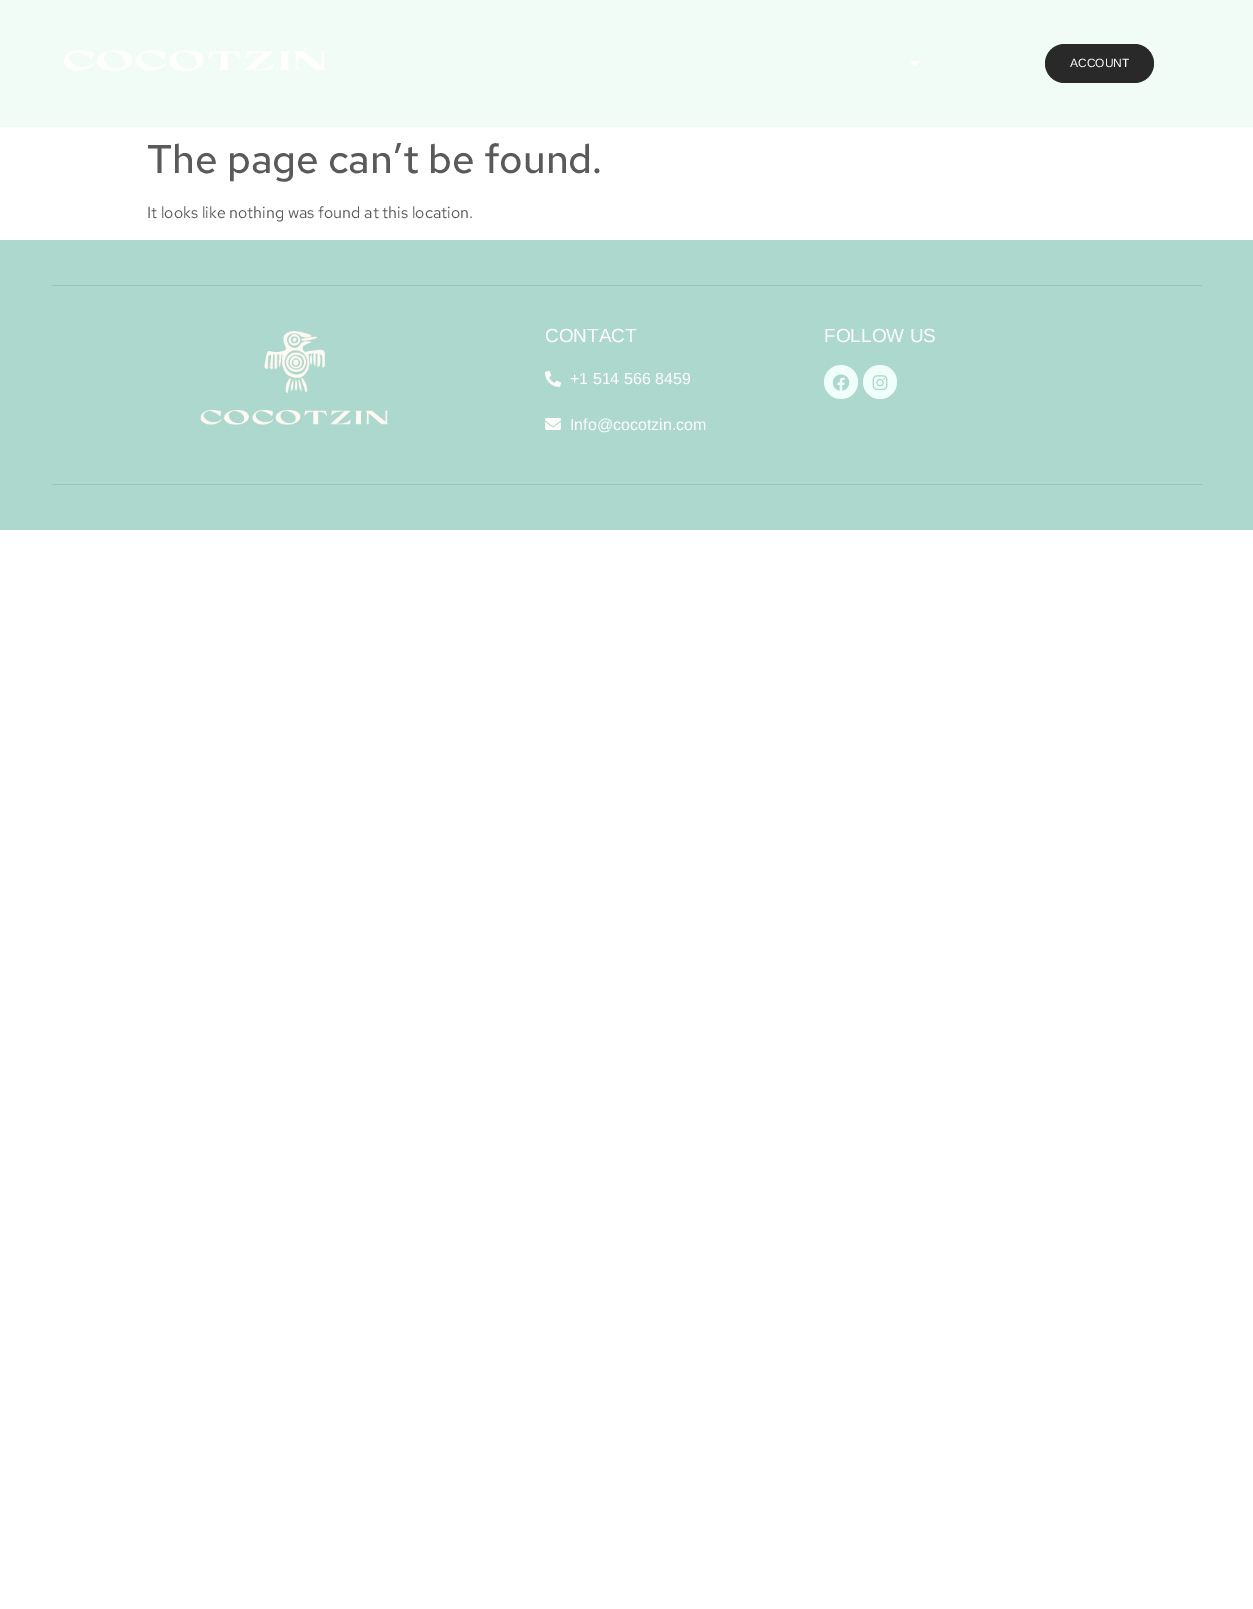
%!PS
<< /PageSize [1253 1609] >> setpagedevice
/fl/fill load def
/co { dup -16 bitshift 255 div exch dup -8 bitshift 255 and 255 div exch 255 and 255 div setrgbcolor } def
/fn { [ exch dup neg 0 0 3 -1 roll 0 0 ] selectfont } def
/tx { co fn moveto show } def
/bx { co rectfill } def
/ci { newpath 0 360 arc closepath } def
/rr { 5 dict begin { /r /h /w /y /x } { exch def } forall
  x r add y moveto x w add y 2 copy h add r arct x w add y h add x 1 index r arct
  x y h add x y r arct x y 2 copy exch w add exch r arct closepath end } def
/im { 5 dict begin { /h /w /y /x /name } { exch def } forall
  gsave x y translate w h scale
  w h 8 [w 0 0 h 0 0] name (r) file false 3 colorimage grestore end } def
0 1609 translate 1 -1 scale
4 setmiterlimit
0 0 1253 1609 16#FFFFFF bx
0 0 1253 127 16#F2FCF7 bx
(media/1.raw) 64 50 262 21 im
(media/2.raw) 910 61 10 5 im
16#292929 co
1045 44 109 39 19.5 rr fl
0 240 1253 290 16#ACD8CD bx
52 285 1150 1 16#9BC3B9 bx
52 484 1150 1 16#9BC3B9 bx
(media/3.raw) 200 331 189 94 im
(media/4.raw) 545 371 16 16 im
(media/5.raw) 545 418 16 12 im
16#F1FFFB co
841 382 17 ci fl
(media/6.raw) 832 374 18 17 im
880 382 17 ci fl
(media/7.raw) 872 375 16 16 im
(ACCOUNT) 1070 67 /LiberationSans-Regular 12 16#FFFFFF tx
(The page can’t be found.) 147 173 /RedHatText-Medium 40 16#5A5A5A tx
(It looks like nothing was found at this location.) 147 218 /RedHatText-Regular 16 16#5A5A5A tx
(CONTACT) 545 342 /LiberationSans-Regular 19 16#FFFFFF tx
(+1 514 566 8459) 570 384 /LiberationSans-Regular 16 16#FFFFFF tx
(Info@cocotzin.com) 570 430 /LiberationSans-Regular 16 16#FFFFFF tx
(FOLLOW US) 824 342 /LiberationSans-Regular 19 16#FFFFFF tx
showpage
